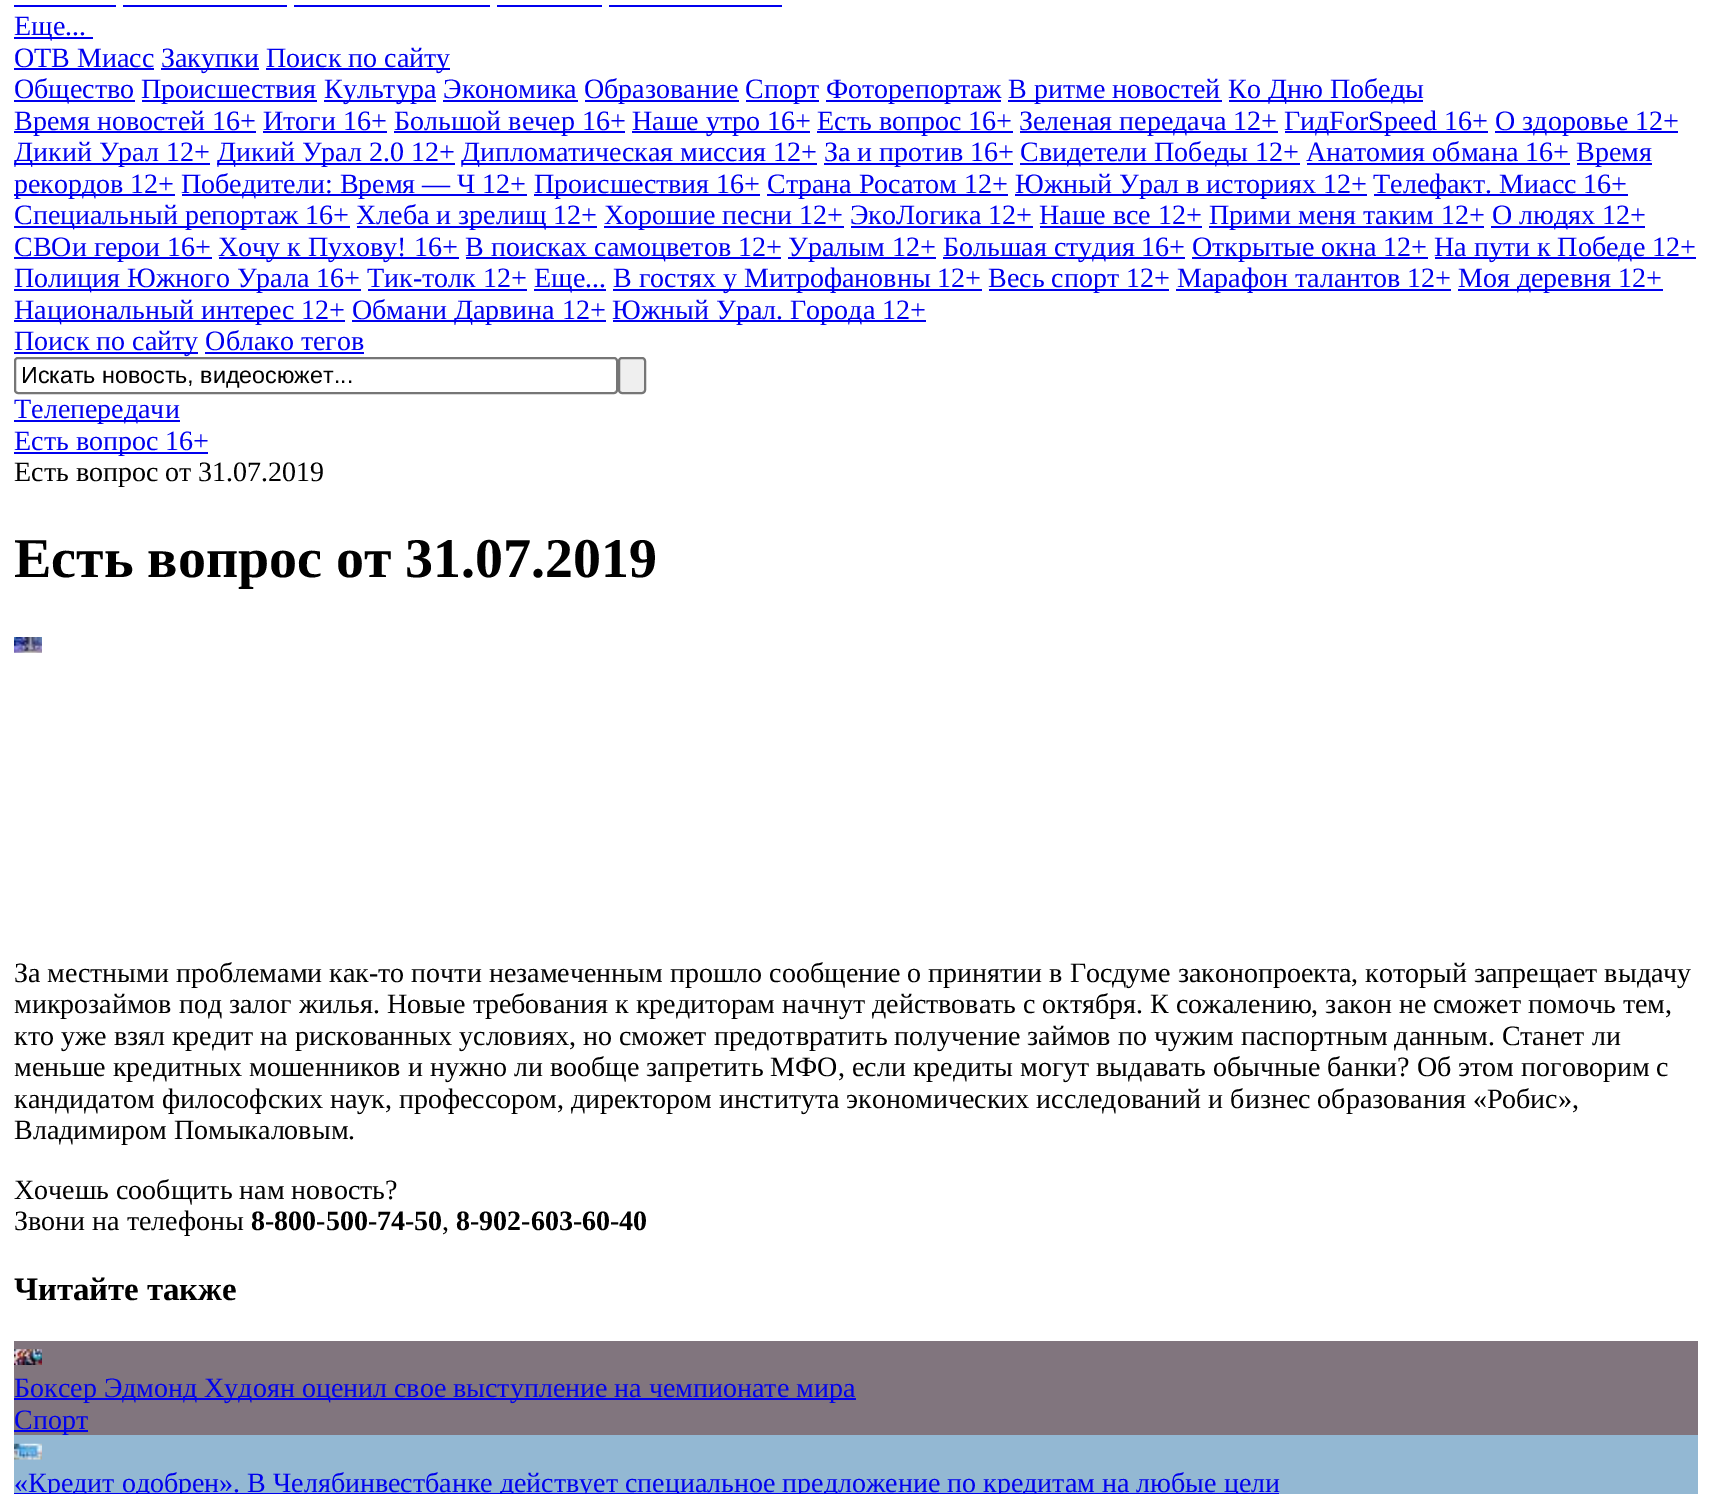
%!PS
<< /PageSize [1710 1494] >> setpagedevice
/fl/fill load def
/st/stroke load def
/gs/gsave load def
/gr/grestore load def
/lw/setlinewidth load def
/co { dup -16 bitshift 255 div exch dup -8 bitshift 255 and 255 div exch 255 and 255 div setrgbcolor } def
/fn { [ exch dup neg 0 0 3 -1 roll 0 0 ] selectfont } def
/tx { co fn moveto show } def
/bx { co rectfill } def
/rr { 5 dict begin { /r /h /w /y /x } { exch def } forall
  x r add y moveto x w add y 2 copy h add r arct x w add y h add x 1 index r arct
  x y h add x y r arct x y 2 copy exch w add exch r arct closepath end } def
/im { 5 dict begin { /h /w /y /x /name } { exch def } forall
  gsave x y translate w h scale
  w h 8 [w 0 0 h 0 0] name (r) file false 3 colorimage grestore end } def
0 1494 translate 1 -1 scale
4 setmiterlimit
0 0 1710 1494 16#FFFFFF bx
14 5 102 2 16#0000EE bx
123 5 164 2 16#0000EE bx
294 5 196 2 16#0000EE bx
497 5 105 2 16#0000EE bx
609 5 173 2 16#0000EE bx
14 37 79 2 16#0000EE bx
14 68 140 2 16#0000EE bx
161 68 98 2 16#0000EE bx
266 68 184 2 16#0000EE bx
14 100 121 2 16#0000EE bx
142 100 175 2 16#0000EE bx
324 100 112 2 16#0000EE bx
585 100 154 2 16#0000EE bx
746 100 73 2 16#0000EE bx
826 100 175 2 16#0000EE bx
1008 100 214 2 16#0000EE bx
1229 100 194 2 16#0000EE bx
443 100 135 2 16#0000EE bx
14 131 242 2 16#0000EE bx
394 131 231 2 16#0000EE bx
632 131 178 2 16#0000EE bx
817 131 196 2 16#0000EE bx
1020 131 258 2 16#0000EE bx
1285 131 203 2 16#0000EE bx
1495 131 183 2 16#0000EE bx
263 131 124 2 16#0000EE bx
14 163 196 2 16#0000EE bx
217 163 238 2 16#0000EE bx
462 163 355 2 16#0000EE bx
824 163 189 2 16#0000EE bx
1020 163 280 2 16#0000EE bx
1577 163 75 2 16#0000EE bx
1307 163 263 2 16#0000EE bx
14 194 161 2 16#0000EE bx
182 194 345 2 16#0000EE bx
534 194 226 2 16#0000EE bx
767 194 241 2 16#0000EE bx
1015 194 352 2 16#0000EE bx
1374 194 254 2 16#0000EE bx
14 226 336 2 16#0000EE bx
357 226 240 2 16#0000EE bx
604 226 240 2 16#0000EE bx
1209 226 275 2 16#0000EE bx
1491 226 154 2 16#0000EE bx
851 226 182 2 16#0000EE bx
1040 226 162 2 16#0000EE bx
14 257 198 2 16#0000EE bx
219 257 240 2 16#0000EE bx
466 257 315 2 16#0000EE bx
788 257 148 2 16#0000EE bx
943 257 242 2 16#0000EE bx
1192 257 236 2 16#0000EE bx
1435 257 261 2 16#0000EE bx
14 289 347 2 16#0000EE bx
534 289 72 2 16#0000EE bx
613 289 369 2 16#0000EE bx
989 289 180 2 16#0000EE bx
1176 289 275 2 16#0000EE bx
1458 289 205 2 16#0000EE bx
368 289 159 2 16#0000EE bx
14 320 331 2 16#0000EE bx
352 320 254 2 16#0000EE bx
613 320 313 2 16#0000EE bx
14 352 184 2 16#0000EE bx
205 352 159 2 16#0000EE bx
16#767676 co
2 lw
15 358 602 35 3 rr st
16#EFEFEF co
619 358 26 35 3 rr gs fl gr
16#767676 co
st
14 420 166 2 16#0000EE bx
14 452 194 2 16#0000EE bx
(media/1.raw) 14 637 28 16 im
14 1341 1684 94 16#81757E bx
(media/2.raw) 14 1349 28 16 im
14 1398 842 2 16#0000EE bx
14 1430 74 2 16#0000EE bx
14 1435 1684 59 16#93B8D3 bx
(media/3.raw) 14 1443 28 17 im
14 1493 1265 1 16#0000EE bx
(Еще...) 14 35 /LiberationSerif-Regular 28 16#0000EE tx
(ОТВ Миасс) 14 67 /LiberationSerif-Regular 28 16#0000EE tx
(Закупки) 161 67 /LiberationSerif-Regular 28 16#0000EE tx
(Поиск по сайту) 266 67 /LiberationSerif-Regular 28 16#0000EE tx
(Общество) 14 98 /LiberationSerif-Regular 28 16#0000EE tx
(Происшествия) 141 98 /LiberationSerif-Regular 28 16#0000EE tx
(Культура Экономика) 324 98 /LiberationSerif-Regular 28 16#0000EE tx
(Образование) 584 98 /LiberationSerif-Regular 28 16#0000EE tx
(Спорт) 745 98 /LiberationSerif-Regular 28 16#0000EE tx
(Фоторепортаж) 826 98 /LiberationSerif-Regular 28 16#0000EE tx
(В ритме новостей) 1008 98 /LiberationSerif-Regular 28 16#0000EE tx
(Ко Дню Победы) 1228 98 /LiberationSerif-Regular 28 16#0000EE tx
(Время новостей 16+ Итоги 16+) 14 130 /LiberationSerif-Regular 28 16#0000EE tx
(Большой вечер 16+) 394 130 /LiberationSerif-Regular 28 16#0000EE tx
(Наше утро 16+) 632 130 /LiberationSerif-Regular 28 16#0000EE tx
(Есть вопрос 16+) 817 130 /LiberationSerif-Regular 28 16#0000EE tx
(Зеленая передача 12+) 1019 130 /LiberationSerif-Regular 28 16#0000EE tx
(ГидForSpeed 16+) 1284 130 /LiberationSerif-Regular 28 16#0000EE tx
(О здоровье 12+) 1495 130 /LiberationSerif-Regular 28 16#0000EE tx
(Дикий Урал 12+) 14 161 /LiberationSerif-Regular 28 16#0000EE tx
(Дикий Урал 2.0 12+) 217 161 /LiberationSerif-Regular 28 16#0000EE tx
(Дипломатическая миссия 12+) 461 161 /LiberationSerif-Regular 28 16#0000EE tx
(За и против 16+) 824 161 /LiberationSerif-Regular 28 16#0000EE tx
(Свидетели Победы 12+ Анатомия обмана 16+) 1020 161 /LiberationSerif-Regular 28 16#0000EE tx
(Время) 1576 161 /LiberationSerif-Regular 28 16#0000EE tx
(рекордов 12+) 14 193 /LiberationSerif-Regular 28 16#0000EE tx
(Победители: Время — Ч 12+) 181 193 /LiberationSerif-Regular 28 16#0000EE tx
(Происшествия 16+) 534 193 /LiberationSerif-Regular 28 16#0000EE tx
(Страна Росатом 12+) 767 193 /LiberationSerif-Regular 28 16#0000EE tx
(Южный Урал в историях 12+) 1015 193 /LiberationSerif-Regular 28 16#0000EE tx
(Телефакт. Миасс 16+) 1373 193 /LiberationSerif-Regular 28 16#0000EE tx
(Специальный репортаж 16+) 14 224 /LiberationSerif-Regular 28 16#0000EE tx
(Хлеба и зрелищ 12+) 356 224 /LiberationSerif-Regular 28 16#0000EE tx
(Хорошие песни 12+ ЭкоЛогика 12+ Наше все 12+) 604 224 /LiberationSerif-Regular 28 16#0000EE tx
(Прими меня таким 12+) 1209 224 /LiberationSerif-Regular 28 16#0000EE tx
(О людях 12+) 1492 224 /LiberationSerif-Regular 28 16#0000EE tx
(СВОи герои 16+) 14 256 /LiberationSerif-Regular 28 16#0000EE tx
(Хочу к Пухову! 16+) 218 256 /LiberationSerif-Regular 28 16#0000EE tx
(В поисках самоцветов 12+) 465 256 /LiberationSerif-Regular 28 16#0000EE tx
(Уралым 12+) 788 256 /LiberationSerif-Regular 28 16#0000EE tx
(Большая студия 16+) 943 256 /LiberationSerif-Regular 28 16#0000EE tx
(Открытые окна 12+) 1192 256 /LiberationSerif-Regular 28 16#0000EE tx
(На пути к Победе 12+) 1434 256 /LiberationSerif-Regular 28 16#0000EE tx
(Полиция Южного Урала 16+ Тик-толк 12+) 14 287 /LiberationSerif-Regular 28 16#0000EE tx
(Еще...) 534 287 /LiberationSerif-Regular 28 16#0000EE tx
(В гостях у Митрофановны 12+) 613 287 /LiberationSerif-Regular 28 16#0000EE tx
(Весь спорт 12+) 988 287 /LiberationSerif-Regular 28 16#0000EE tx
(Марафон талантов 12+) 1177 287 /LiberationSerif-Regular 28 16#0000EE tx
(Моя деревня 12+) 1458 287 /LiberationSerif-Regular 28 16#0000EE tx
(Национальный интерес 12+) 14 319 /LiberationSerif-Regular 28 16#0000EE tx
(Обмани Дарвина 12+) 352 319 /LiberationSerif-Regular 28 16#0000EE tx
(Южный Урал. Города 12+) 612 319 /LiberationSerif-Regular 28 16#0000EE tx
(Поиск по сайту Облако тегов) 14 350 /LiberationSerif-Regular 28 16#0000EE tx
(Искать новость, видеосюжет...) 21 383 /LiberationSans-Regular 23.3 16#000000 tx
(Телепередачи) 14 418 /LiberationSerif-Regular 28 16#0000EE tx
(Есть вопрос 16+) 14 450 /LiberationSerif-Regular 28 16#0000EE tx
(Есть вопрос от 31.07.2019) 14 481 /LiberationSerif-Regular 28 16#000000 tx
(Есть вопрос от 31.07.2019) 14 577 /LiberationSerif-Bold 56 16#000000 tx
(За местными проблемами как-то почти незамеченным прошло сообщение о принятии в Госдуме законопроекта, который запрещает выдачу) 14 982 /LiberationSerif-Regular 28 16#000000 tx
(микрозаймов под залог жилья. Новые требования к кредиторам начнут действовать с октября. К сожалению, закон не сможет помочь тем,) 14 1013 /LiberationSerif-Regular 28 16#000000 tx
(кто уже взял кредит на рискованных условиях, но сможет предотвратить получение займов по чужим паспортным данным. Станет ли) 14 1045 /LiberationSerif-Regular 28 16#000000 tx
(меньше кредитных мошенников и нужно ли вообще запретить МФО, если кредиты могут выдавать обычные банки? Об этом поговорим с) 14 1076 /LiberationSerif-Regular 28 16#000000 tx
(кандидатом философских наук, профессором, директором института экономических исследований и бизнес образования «Робис»,) 14 1108 /LiberationSerif-Regular 28 16#000000 tx
(Владимиром Помыкаловым.) 14 1139 /LiberationSerif-Regular 28 16#000000 tx
(Хочешь сообщить нам новость?) 14 1199 /LiberationSerif-Regular 28 16#000000 tx
(Звони на телефоны) 14 1230 /LiberationSerif-Regular 28 16#000000 tx
(8-800-500-74-50) 251 1230 /LiberationSerif-Bold 28 16#000000 tx
(,) 442 1230 /LiberationSerif-Regular 28 16#000000 tx
(8-902-603-60-40) 456 1230 /LiberationSerif-Bold 28 16#000000 tx
(Читайте также) 14 1300 /LiberationSerif-Bold 32.75 16#000000 tx
(Боксер Эдмонд Худоян оценил свое выступление на чемпионате мира) 14 1397 /LiberationSerif-Regular 28 16#0000EE tx
(Спорт) 14 1429 /LiberationSerif-Regular 28 16#0000EE tx
(«Кредит одобрен». В Челябинвестбанке действует специальное предложение по кредитам на любые цели) 14 1492 /LiberationSerif-Regular 28 16#0000EE tx
showpage
